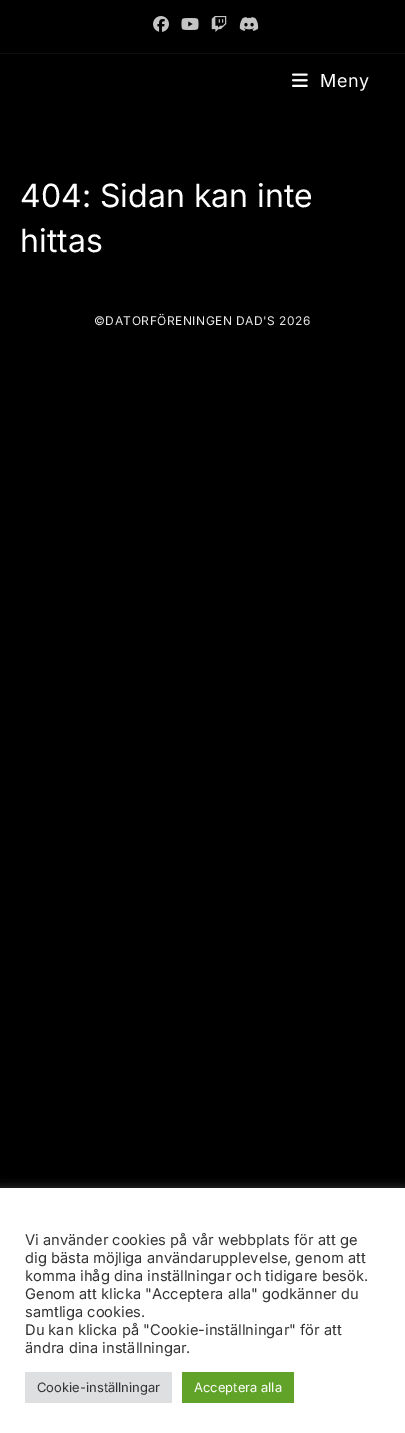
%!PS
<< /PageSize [405 1433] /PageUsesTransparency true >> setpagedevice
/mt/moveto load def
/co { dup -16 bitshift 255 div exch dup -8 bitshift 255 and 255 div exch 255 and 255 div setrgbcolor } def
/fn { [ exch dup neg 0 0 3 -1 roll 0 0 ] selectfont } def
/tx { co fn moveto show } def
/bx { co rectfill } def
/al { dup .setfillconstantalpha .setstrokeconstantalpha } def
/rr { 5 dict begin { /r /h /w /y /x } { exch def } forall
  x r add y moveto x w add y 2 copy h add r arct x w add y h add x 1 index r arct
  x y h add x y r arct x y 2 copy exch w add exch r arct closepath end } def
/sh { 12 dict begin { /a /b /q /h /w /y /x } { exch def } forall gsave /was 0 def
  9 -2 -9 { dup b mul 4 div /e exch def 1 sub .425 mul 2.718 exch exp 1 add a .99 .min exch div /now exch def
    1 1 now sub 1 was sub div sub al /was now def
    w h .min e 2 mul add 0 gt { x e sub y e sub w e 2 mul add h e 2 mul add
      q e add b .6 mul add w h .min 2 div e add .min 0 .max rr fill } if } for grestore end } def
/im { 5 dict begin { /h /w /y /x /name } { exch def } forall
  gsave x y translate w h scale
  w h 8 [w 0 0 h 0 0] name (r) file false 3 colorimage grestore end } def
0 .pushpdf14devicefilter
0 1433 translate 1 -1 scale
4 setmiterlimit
0 0 405 1433 16#000000 bx
0 53 405 1 16#0F0F0F bx
(media/1.raw) 153 16 16 16 im
(media/2.raw) 181 18 18 12 im
(media/3.raw) 211 16 16 16 im
(media/4.raw) 239 17 20 14 im
(media/5.raw) 292 73 16 14 im
16#ACABAB co
0 1187 405 245 0 5 .3 sh
0 1188 405 245 16#FFFFFF bx
25 1372 147 31 16#DEDFE0 bx
182 1372 112 31 16#61A229 bx
/Inter-Regular 18 fn
16#FFFFFF co
320 87 mt .5 0 (Meny) ashow
(404: Sidan kan inte) 20 207 /Inter-Regular 32 16#FFFFFF tx
(hittas) 20 252 /Inter-Regular 32 16#FFFFFF tx
/Inter-Regular 12 fn
16#EAEAEA co
94 325 mt .5 0 (©DATORFÖRENINGEN DAD'S 2026) ashow
(Vi använder cookies på vår webbplats för att ge) 25 1245 /Inter-Regular 14.7 16#333333 tx
(dig bästa möjliga användarupplevelse, genom att) 25 1263 /Inter-Regular 14.7 16#333333 tx
(komma ihåg dina inställningar och tidigare besök.) 25 1281 /Inter-Regular 14.7 16#333333 tx
(Genom att klicka "Acceptera alla" godkänner du) 25 1299 /Inter-Regular 14.7 16#333333 tx
(samtliga cookies.) 25 1317 /Inter-Regular 14.7 16#333333 tx
(Du kan klicka på "Cookie-inställningar" för att) 25 1335 /Inter-Regular 14.7 16#333333 tx
(ändra dina inställningar.) 25 1353 /Inter-Regular 14.7 16#333333 tx
(Cookie-inställningar) 37 1392 /Inter-Regular 13 16#333333 tx
(Acceptera alla) 194 1392 /Inter-Regular 13 16#FFFFFF tx
.poppdf14devicefilter showpage
